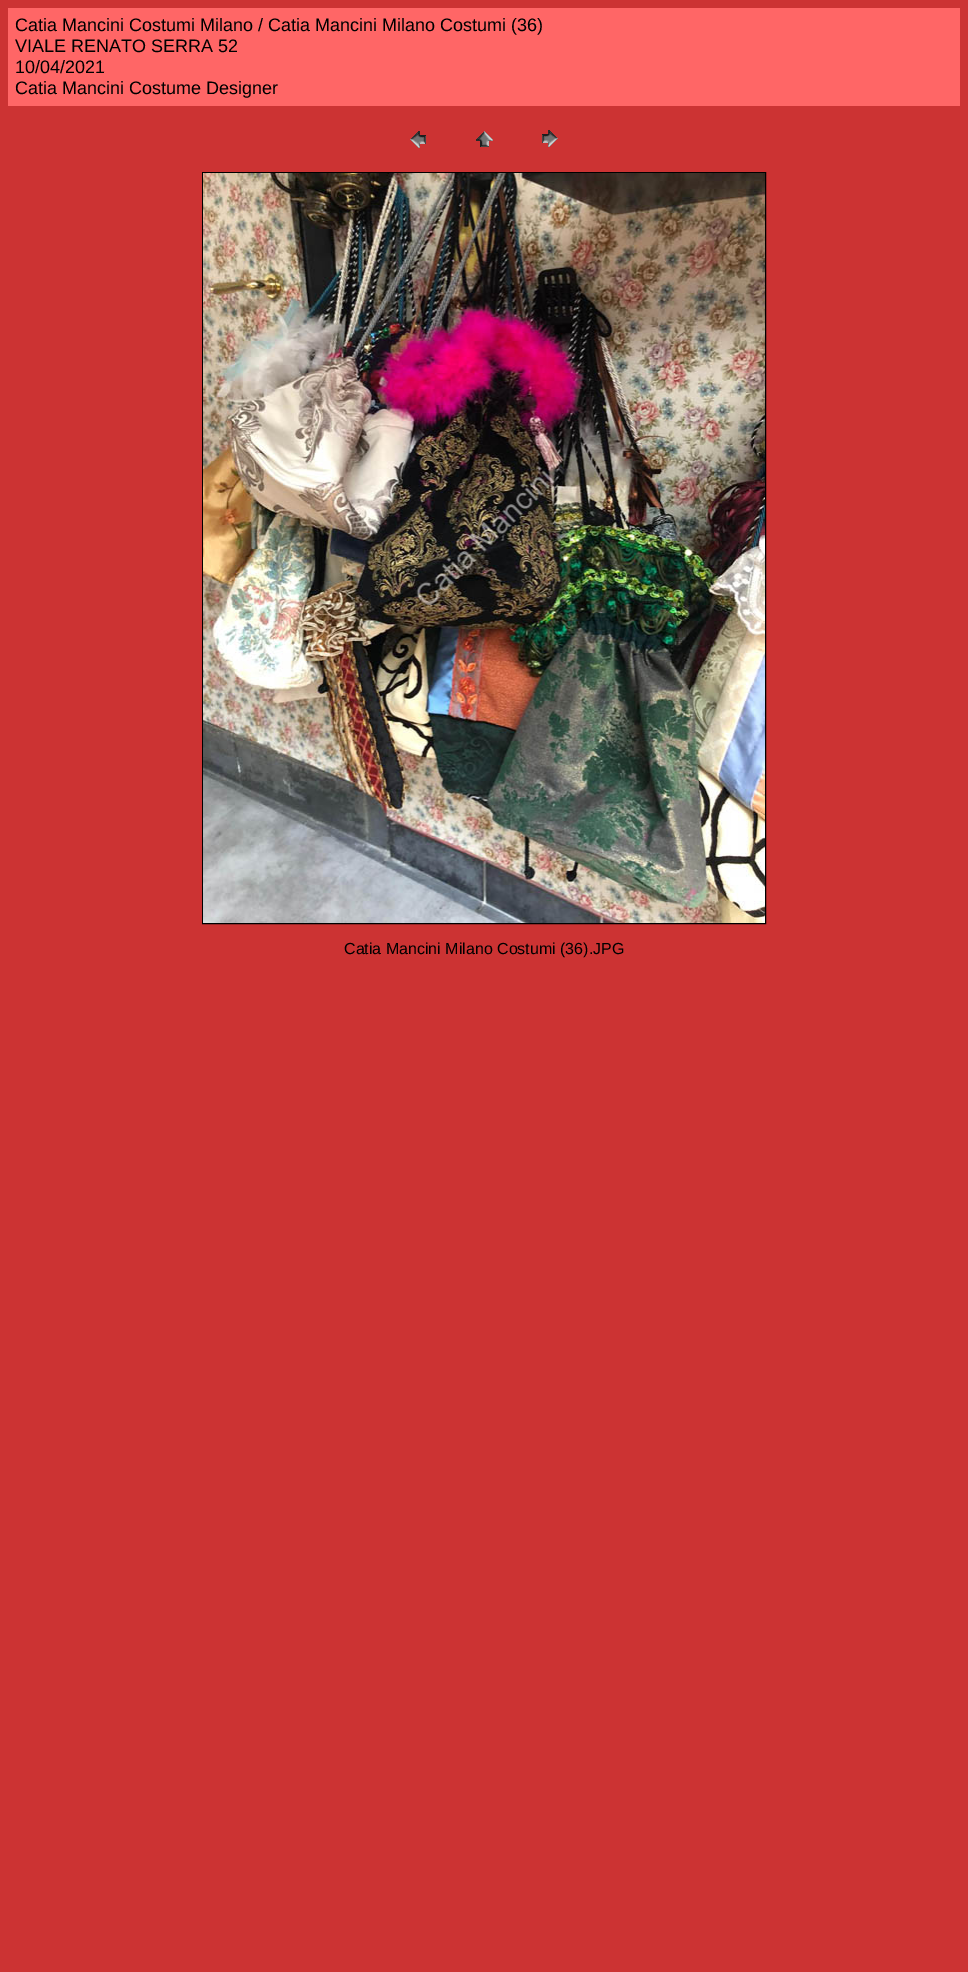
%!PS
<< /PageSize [968 1972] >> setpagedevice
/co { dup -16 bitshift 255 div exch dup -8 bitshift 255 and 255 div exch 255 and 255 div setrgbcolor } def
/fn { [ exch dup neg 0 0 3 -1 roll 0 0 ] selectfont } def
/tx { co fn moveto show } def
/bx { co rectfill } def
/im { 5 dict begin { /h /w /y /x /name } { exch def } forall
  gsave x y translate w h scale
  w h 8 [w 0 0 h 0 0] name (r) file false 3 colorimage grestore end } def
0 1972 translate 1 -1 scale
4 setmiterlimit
0 0 968 1972 16#CC3333 bx
8 8 952 98 16#FF6666 bx
(media/1.raw) 410 131 16 17 im
(media/2.raw) 476 131 17 16 im
(media/3.raw) 542 130 16 17 im
16#000000 co
202.5 172.5 563 751 rectstroke
(media/4.raw) 203 173 562 750 im
(Catia Mancini Costumi Milano / Catia Mancini Milano Costumi \(36\)) 15 31 /LiberationSans-Regular 18 16#000000 tx
(VIALE RENATO SERRA 52) 15 52 /LiberationSans-Regular 18 16#000000 tx
(10/04/2021) 15 73 /LiberationSans-Regular 18 16#000000 tx
(Catia Mancini Costume Designer) 15 94 /LiberationSans-Regular 18 16#000000 tx
(Catia Mancini Milano Costumi \(36\).JPG) 344 954 /LiberationSans-Regular 16 16#000000 tx
showpage
